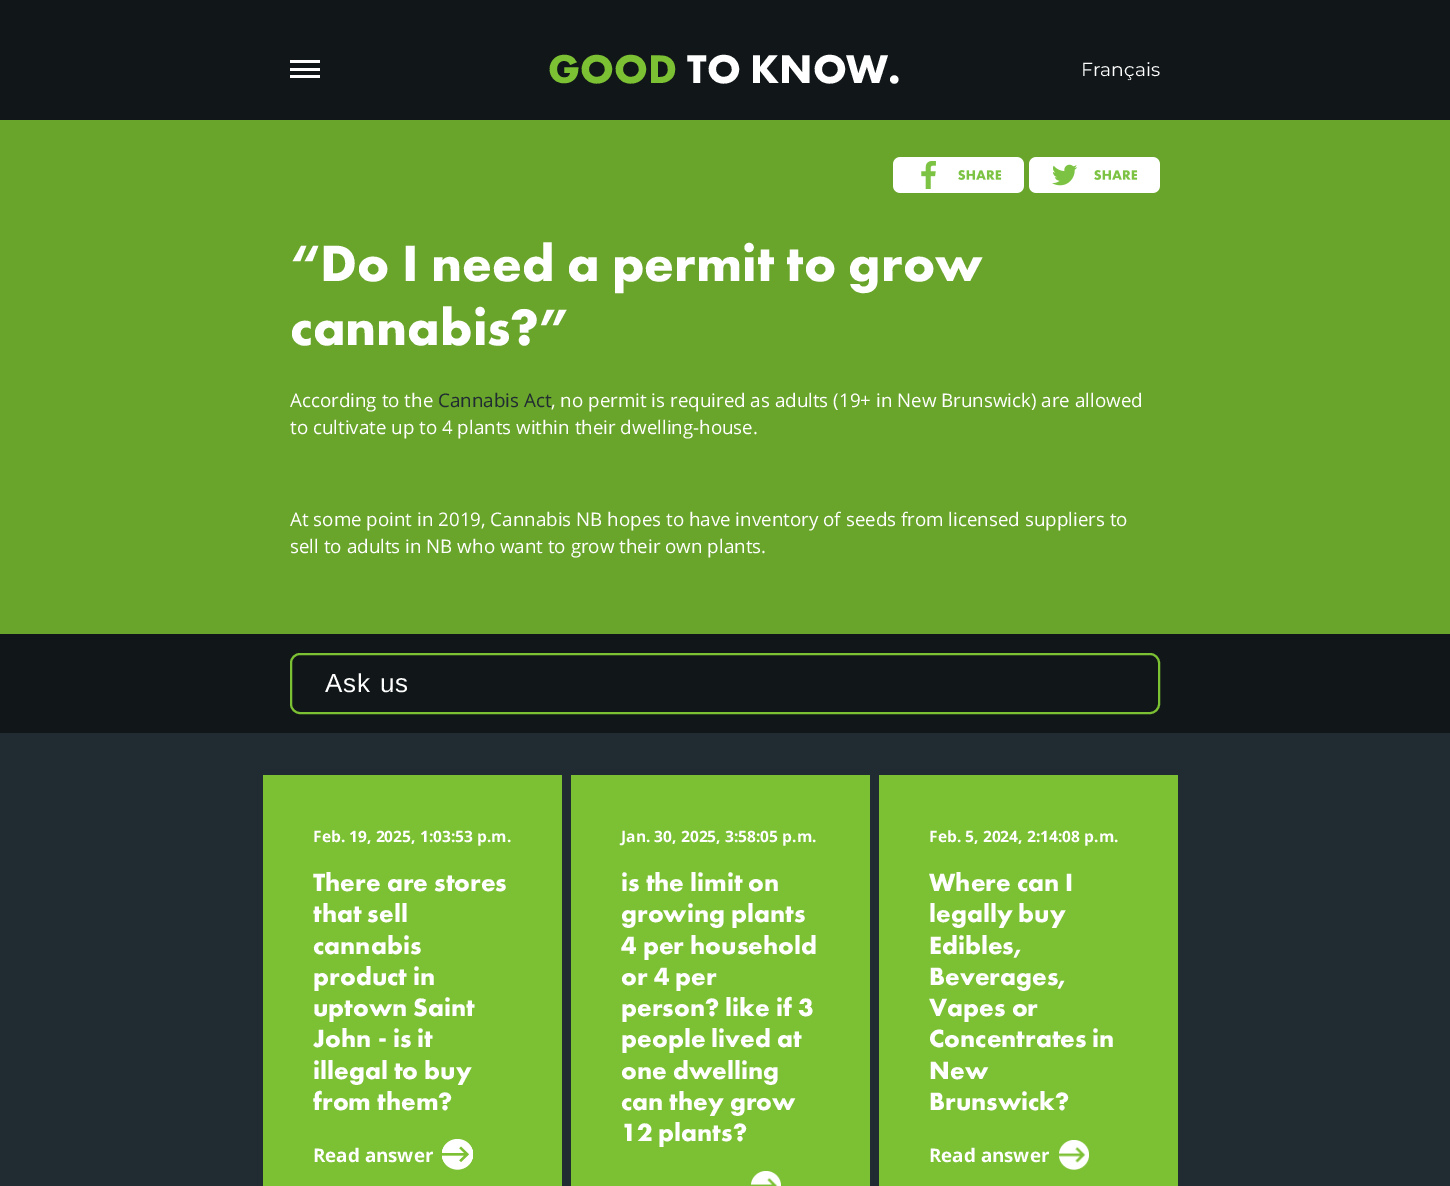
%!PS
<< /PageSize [1450 1186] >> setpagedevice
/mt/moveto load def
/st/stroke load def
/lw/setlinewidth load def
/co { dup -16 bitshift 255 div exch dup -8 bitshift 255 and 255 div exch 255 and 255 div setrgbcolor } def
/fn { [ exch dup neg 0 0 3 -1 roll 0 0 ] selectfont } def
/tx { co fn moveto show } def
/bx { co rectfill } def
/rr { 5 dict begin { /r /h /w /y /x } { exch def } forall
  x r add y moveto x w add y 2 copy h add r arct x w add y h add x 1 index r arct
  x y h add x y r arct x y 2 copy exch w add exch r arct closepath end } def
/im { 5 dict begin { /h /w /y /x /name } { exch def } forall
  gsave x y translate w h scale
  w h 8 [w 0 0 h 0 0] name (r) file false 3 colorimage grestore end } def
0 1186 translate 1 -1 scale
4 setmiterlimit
0 0 1450 1186 16#212C32 bx
0 0 1450 120 16#111719 bx
290 60 30 3 16#FFFFFF bx
290 68 30 3 16#FFFFFF bx
290 75 30 3 16#FFFFFF bx
0 120 1450 514 16#6AA52B bx
(media/1.raw) 893 157 131 36 im
(media/2.raw) 1029 157 131 36 im
0 634 1450 99 16#111719 bx
16#7CC033 co
2 lw
291 654 868 59 9 rr st
263 775 299 411 16#7CC033 bx
(media/3.raw) 442 1139 31 31 im
571 775 299 411 16#7CC033 bx
(media/4.raw) 751 1171 30 15 im
879 775 299 411 16#7CC033 bx
(media/5.raw) 1059 1140 30 30 im
(GOOD) 548 83 /FuturaPT-Bold 41.5 16#7CC033 tx
(TO KNOW.) 687 83 /FuturaPT-Bold 41.5 16#FFFFFF tx
(Français) 1081 76 /Montserrat-Regular 18.75 16#FFFFFF tx
(“Do I need a permit to grow) 290 281 /FuturaPT-Bold 53 16#FFFFFF tx
(cannabis?”) 290 345 /FuturaPT-Bold 53 16#FFFFFF tx
(According to the) 290 407 /OpenSans-Regular 18.75 16#FFFFFF tx
(Cannabis Act) 438 407 /OpenSans-Regular 18.75 16#212C32 tx
(, no permit is required as adults \(19+ in New Brunswick\) are allowed) 551 407 /OpenSans-Regular 18.75 16#FFFFFF tx
(to cultivate up to 4 plants within their dwelling-house.) 290 434 /OpenSans-Regular 18.75 16#FFFFFF tx
(At some point in 2019, Cannabis NB hopes to have inventory of seeds from licensed suppliers to) 290 526 /OpenSans-Regular 18.75 16#FFFFFF tx
(sell to adults in NB who want to grow their own plants.) 290 553 /OpenSans-Regular 18.75 16#FFFFFF tx
/LiberationSans-Regular 26 fn
325 692 mt 1 0 (Ask us) ashow
(Feb. 19, 2025, 1:03:53 p.m.) 313 842 /OpenSans-Bold 15.6 16#FFFFFF tx
(There are stores) 313 891 /FuturaPT-Bold 26 16#FFFFFF tx
(that sell) 313 922 /FuturaPT-Bold 26 16#FFFFFF tx
(cannabis) 313 954 /FuturaPT-Bold 26 16#FFFFFF tx
(product in) 313 985 /FuturaPT-Bold 26 16#FFFFFF tx
(uptown Saint) 313 1016 /FuturaPT-Bold 26 16#FFFFFF tx
(John - is it) 313 1047 /FuturaPT-Bold 26 16#FFFFFF tx
(illegal to buy) 313 1079 /FuturaPT-Bold 26 16#FFFFFF tx
(from them?) 313 1110 /FuturaPT-Bold 26 16#FFFFFF tx
(Read answer) 313 1162 /OpenSans-Bold 18.75 16#FFFFFF tx
(Jan. 30, 2025, 3:58:05 p.m.) 621 842 /OpenSans-Bold 15.6 16#FFFFFF tx
(is the limit on) 621 891 /FuturaPT-Bold 26 16#FFFFFF tx
(growing plants) 621 922 /FuturaPT-Bold 26 16#FFFFFF tx
(4 per household) 621 954 /FuturaPT-Bold 26 16#FFFFFF tx
(or 4 per) 621 985 /FuturaPT-Bold 26 16#FFFFFF tx
(person? like if 3) 621 1016 /FuturaPT-Bold 26 16#FFFFFF tx
(people lived at) 621 1047 /FuturaPT-Bold 26 16#FFFFFF tx
(one dwelling) 621 1079 /FuturaPT-Bold 26 16#FFFFFF tx
(can they grow) 621 1110 /FuturaPT-Bold 26 16#FFFFFF tx
(12 plants?) 621 1141 /FuturaPT-Bold 26 16#FFFFFF tx
(Feb. 5, 2024, 2:14:08 p.m.) 929 842 /OpenSans-Bold 15.6 16#FFFFFF tx
(Where can I) 929 891 /FuturaPT-Bold 26 16#FFFFFF tx
(legally buy) 929 922 /FuturaPT-Bold 26 16#FFFFFF tx
(Edibles,) 929 954 /FuturaPT-Bold 26 16#FFFFFF tx
(Beverages,) 929 985 /FuturaPT-Bold 26 16#FFFFFF tx
(Vapes or) 929 1016 /FuturaPT-Bold 26 16#FFFFFF tx
(Concentrates in) 929 1047 /FuturaPT-Bold 26 16#FFFFFF tx
(New) 929 1079 /FuturaPT-Bold 26 16#FFFFFF tx
(Brunswick?) 929 1110 /FuturaPT-Bold 26 16#FFFFFF tx
(Read answer) 929 1162 /OpenSans-Bold 18.75 16#FFFFFF tx
showpage
